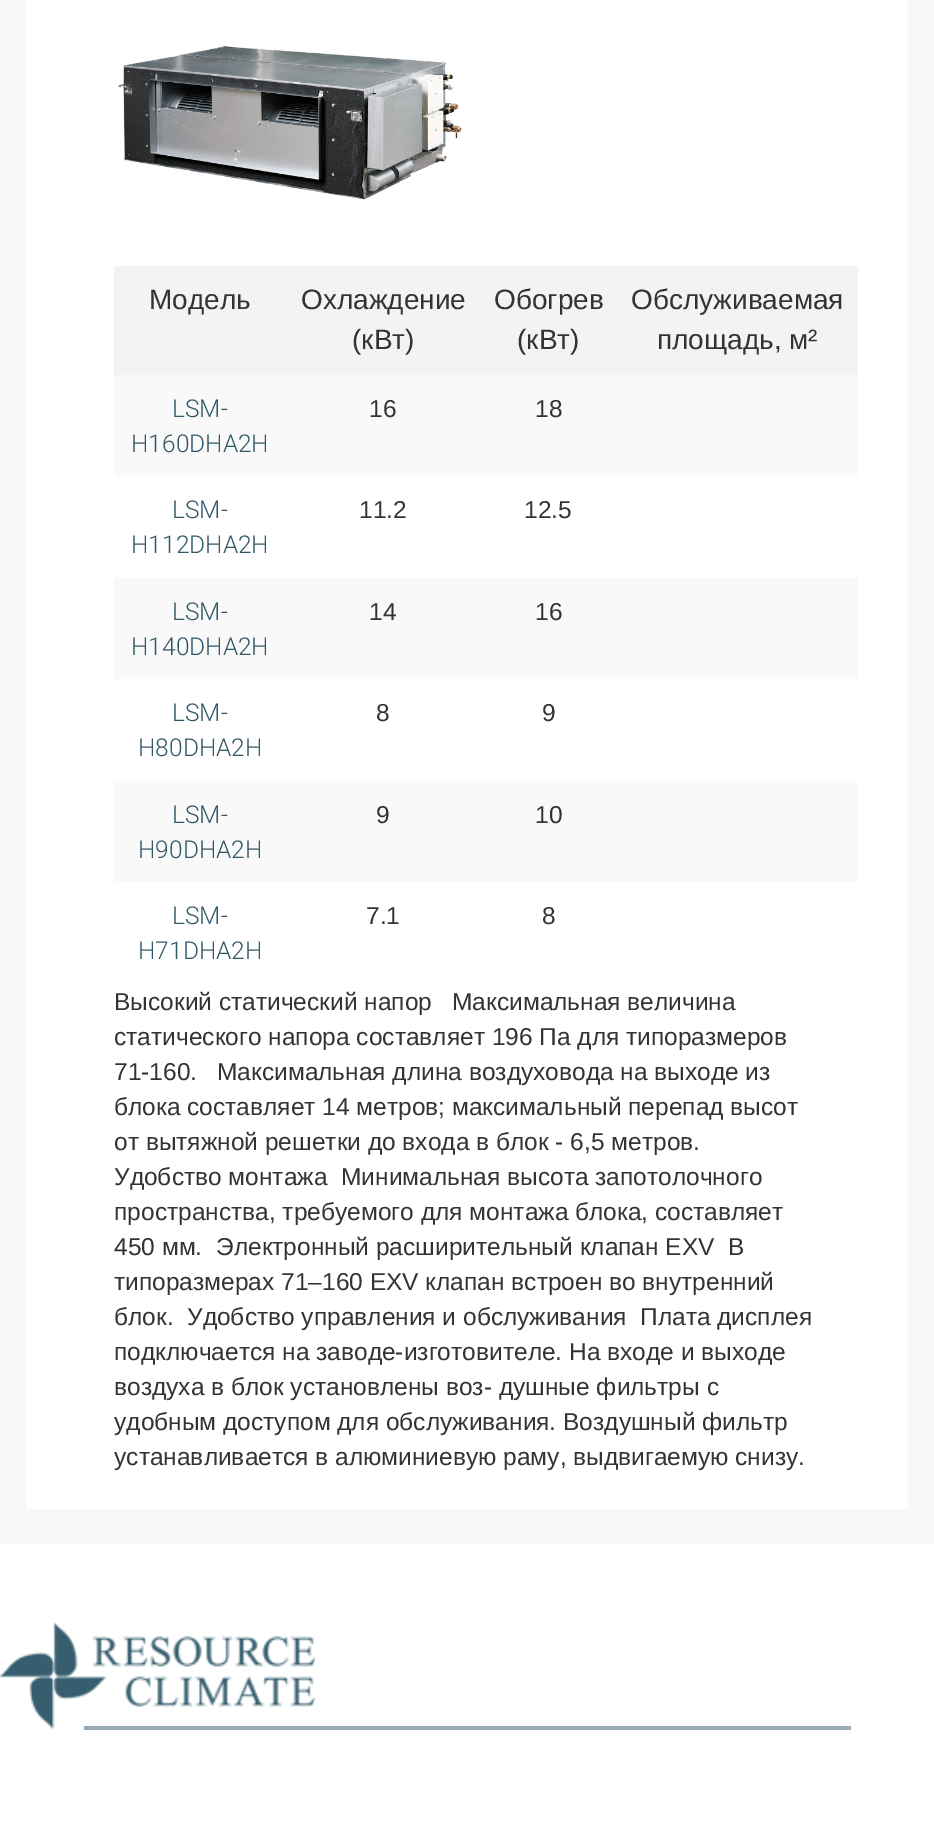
%!PS
<< /PageSize [934 1825] >> setpagedevice
/co { dup -16 bitshift 255 div exch dup -8 bitshift 255 and 255 div exch 255 and 255 div setrgbcolor } def
/fn { [ exch dup neg 0 0 3 -1 roll 0 0 ] selectfont } def
/tx { co fn moveto show } def
/bx { co rectfill } def
/im { 5 dict begin { /h /w /y /x /name } { exch def } forall
  gsave x y translate w h scale
  w h 8 [w 0 0 h 0 0] name (r) file false 3 colorimage grestore end } def
0 1825 translate 1 -1 scale
4 setmiterlimit
0 0 934 1825 16#FFFFFF bx
0 0 934 1544 16#F8F8F8 bx
26 0 882 1509 16#FFFFFF bx
(media/1.raw) 118 46 344 154 im
114 266 744 109 16#F3F3F3 bx
114 375 744 101 16#F9F9F9 bx
114 578 744 101 16#F9F9F9 bx
114 781 744 101 16#F9F9F9 bx
(media/2.raw) 0 1622 315 108 im
84 1726 767 4 16#99ACB4 bx
(Модель) 149 309 /LiberationSans-Regular 28 16#333333 tx
(Охлаждение) 301 309 /LiberationSans-Regular 28 16#333333 tx
(\(кВт\)) 352 349 /LiberationSans-Regular 28 16#333333 tx
(Обогрев) 494 309 /LiberationSans-Regular 28 16#333333 tx
(\(кВт\)) 517 349 /LiberationSans-Regular 28 16#333333 tx
(Обслуживаемая) 631 309 /LiberationSans-Regular 28 16#333333 tx
(площадь, м²) 657 349 /LiberationSans-Regular 28 16#333333 tx
(LSM-) 172 417 /Roboto-Light 24.5 16#325868 tx
(H160DHA2H) 131 452 /Roboto-Light 24.5 16#325868 tx
(16) 369 417 /LiberationSans-Regular 24.5 16#333333 tx
(18) 535 417 /LiberationSans-Regular 24.5 16#333333 tx
(LSM-) 172 518 /Roboto-Light 24.5 16#325868 tx
(H112DHA2H) 131 553 /Roboto-Light 24.5 16#325868 tx
(11.2) 359 518 /LiberationSans-Regular 24.5 16#333333 tx
(12.5) 524 518 /LiberationSans-Regular 24.5 16#333333 tx
(LSM-) 172 620 /Roboto-Light 24.5 16#325868 tx
(H140DHA2H) 131 655 /Roboto-Light 24.5 16#325868 tx
(14) 369 620 /LiberationSans-Regular 24.5 16#333333 tx
(16) 535 620 /LiberationSans-Regular 24.5 16#333333 tx
(LSM-) 172 721 /Roboto-Light 24.5 16#325868 tx
(H80DHA2H) 138 756 /Roboto-Light 24.5 16#325868 tx
(8) 376 721 /LiberationSans-Regular 24.5 16#333333 tx
(9) 542 721 /LiberationSans-Regular 24.5 16#333333 tx
(LSM-) 172 823 /Roboto-Light 24.5 16#325868 tx
(H90DHA2H) 138 858 /Roboto-Light 24.5 16#325868 tx
(9) 376 823 /LiberationSans-Regular 24.5 16#333333 tx
(10) 535 823 /LiberationSans-Regular 24.5 16#333333 tx
(LSM-) 172 924 /Roboto-Light 24.5 16#325868 tx
(H71DHA2H) 138 959 /Roboto-Light 24.5 16#325868 tx
(7.1) 366 924 /LiberationSans-Regular 24.5 16#333333 tx
(8) 542 924 /LiberationSans-Regular 24.5 16#333333 tx
(Высокий статический напор) 114 1010 /LiberationSans-Regular 24.5 16#333333 tx
(Максимальная величина) 452 1010 /LiberationSans-Regular 24.5 16#333333 tx
(статического напора составляет 196 Па для типоразмеров) 114 1045 /LiberationSans-Regular 24.5 16#333333 tx
(71-160.) 114 1080 /LiberationSans-Regular 24.5 16#333333 tx
(Максимальная длина воздуховода на выходе из) 217 1080 /LiberationSans-Regular 24.5 16#333333 tx
(блока составляет 14 метров; максимальный перепад высот) 114 1115 /LiberationSans-Regular 24.5 16#333333 tx
(от вытяжной решетки до входа в блок - 6,5 метров.) 114 1150 /LiberationSans-Regular 24.5 16#333333 tx
(Удобство монтажа) 114 1185 /LiberationSans-Regular 24.5 16#333333 tx
(Минимальная высота запотолочного) 341 1185 /LiberationSans-Regular 24.5 16#333333 tx
(пространства, требуемого для монтажа блока, составляет) 114 1220 /LiberationSans-Regular 24.5 16#333333 tx
(450 мм.) 114 1255 /LiberationSans-Regular 24.5 16#333333 tx
(Электронный расширительный клапан EXV) 216 1255 /LiberationSans-Regular 24.5 16#333333 tx
(В) 728 1255 /LiberationSans-Regular 24.5 16#333333 tx
(типоразмерах 71–160 EXV клапан встроен во внутренний) 114 1290 /LiberationSans-Regular 24.5 16#333333 tx
(блок.) 114 1325 /LiberationSans-Regular 24.5 16#333333 tx
(Удобство управления и обслуживания) 187 1325 /LiberationSans-Regular 24.5 16#333333 tx
(Плата дисплея) 640 1325 /LiberationSans-Regular 24.5 16#333333 tx
(подключается на заводе-изготовителе. На входе и выходе) 114 1360 /LiberationSans-Regular 24.5 16#333333 tx
(воздуха в блок установлены воз- душные фильтры с) 114 1395 /LiberationSans-Regular 24.5 16#333333 tx
(удобным доступом для обслуживания. Воздушный фильтр) 114 1430 /LiberationSans-Regular 24.5 16#333333 tx
(устанавливается в алюминиевую раму, выдвигаемую снизу.) 114 1465 /LiberationSans-Regular 24.5 16#333333 tx
showpage
